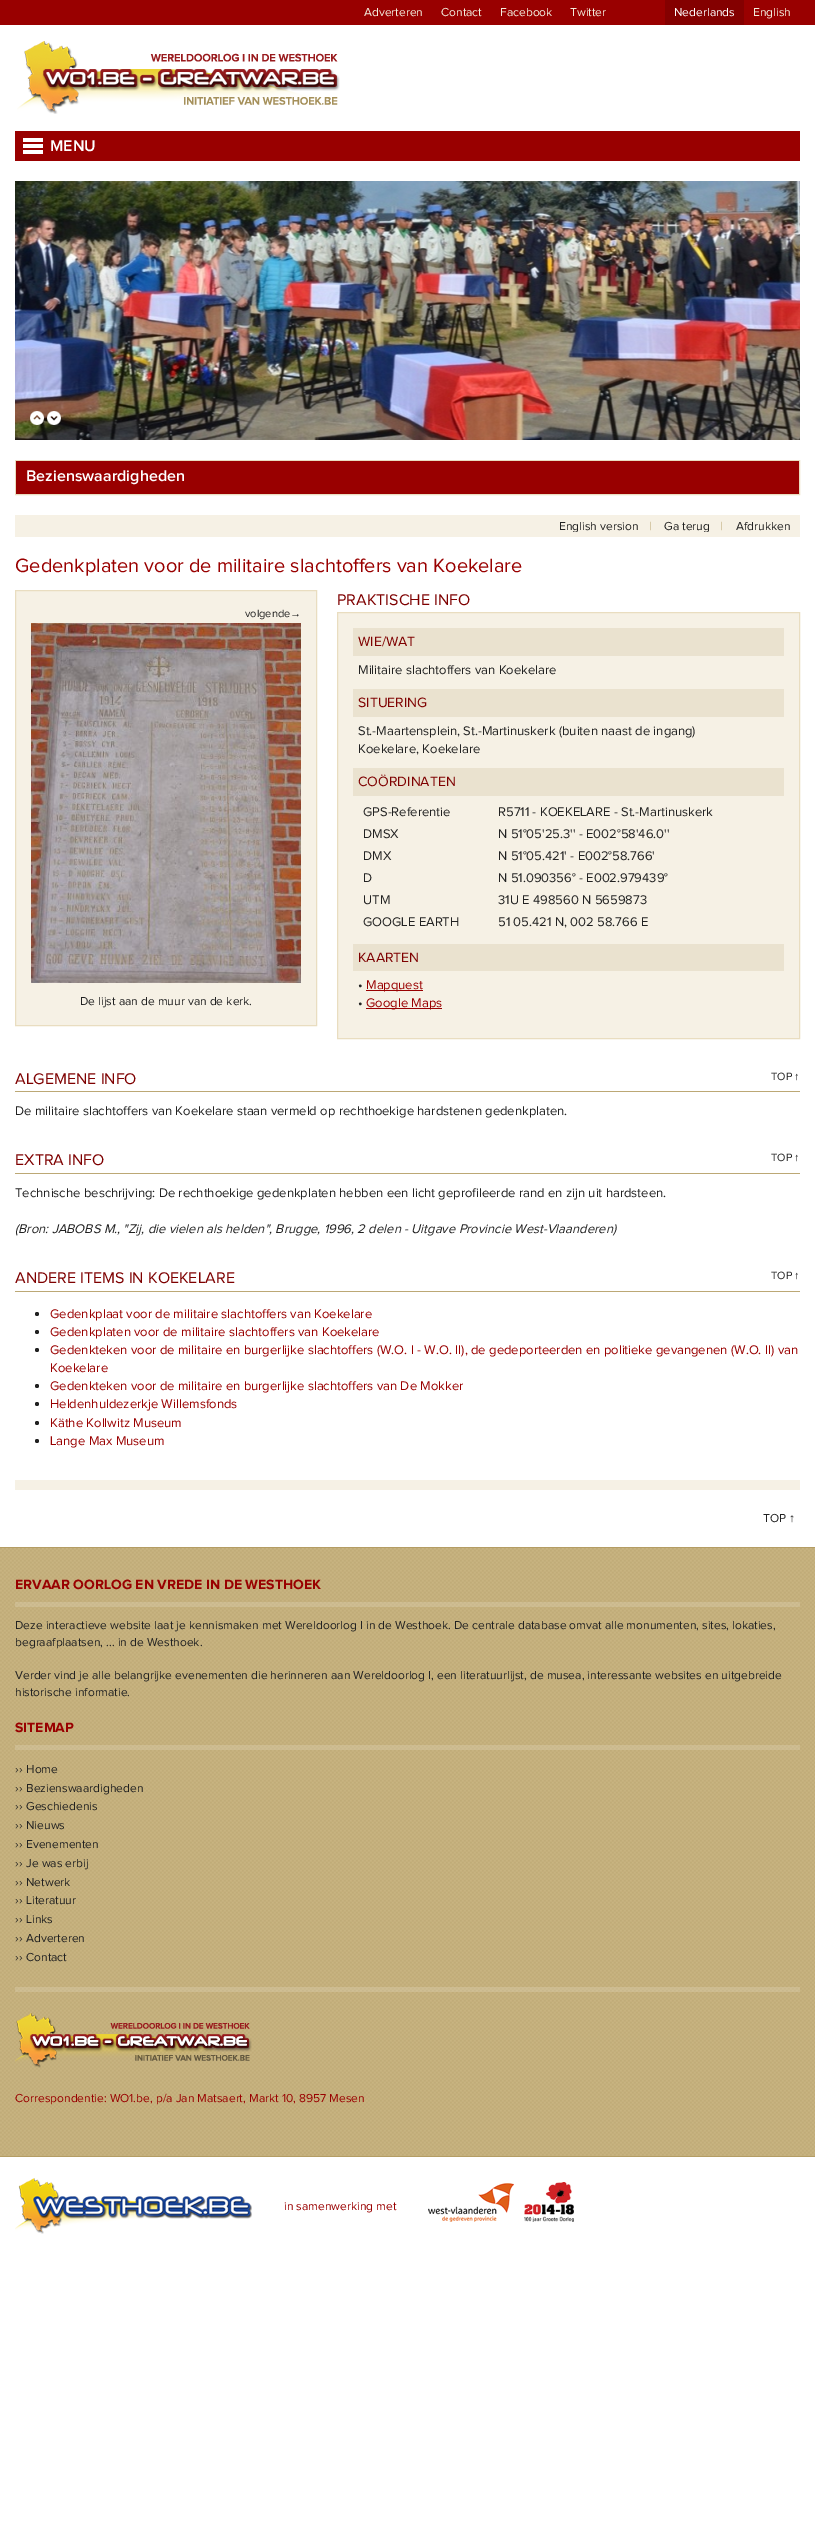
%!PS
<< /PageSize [815 2540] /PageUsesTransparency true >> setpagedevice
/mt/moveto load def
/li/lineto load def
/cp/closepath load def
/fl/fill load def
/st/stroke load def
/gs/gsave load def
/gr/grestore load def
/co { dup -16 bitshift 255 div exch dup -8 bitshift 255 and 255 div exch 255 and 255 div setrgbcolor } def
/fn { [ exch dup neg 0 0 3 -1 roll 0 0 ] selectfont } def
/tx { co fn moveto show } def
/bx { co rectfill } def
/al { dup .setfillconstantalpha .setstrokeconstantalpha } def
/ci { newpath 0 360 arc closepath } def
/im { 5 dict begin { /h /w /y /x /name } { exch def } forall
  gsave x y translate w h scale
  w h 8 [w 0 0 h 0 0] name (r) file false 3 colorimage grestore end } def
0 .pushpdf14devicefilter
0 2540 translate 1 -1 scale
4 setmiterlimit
0 0 815 2540 16#FFFFFF bx
0 0 815 25 16#990000 bx
665 0 79 25 16#840000 bx
(media/1.raw) 17 41 323 73 im
15 131 785 30 16#990000 bx
23 138 20 4 16#FFFFFF bx
23 144 20 4 16#FFFFFF bx
23 150 20 4 16#FFFFFF bx
(media/2.raw) 15 181 785 259 im
(media/3.raw) 30 411 14 14 im
(media/4.raw) 47 411 14 14 im
16#E9DDC0 co
15.5 460.5 784 34 rectstroke
16 461 783 33 16#990000 bx
15 515 785 22 16#F6F1E5 bx
15.5 590.5 mt 316.5 590.5 li 316.5 1025.5 li 15.5 1025.5 li cp gs fl gr
16#E9DDC0 co
st
(media/5.raw) 31 623 270 360 im
16#F6F1E5 co
337.5 612.5 mt 799.5 612.5 li 799.5 1038.5 li 337.5 1038.5 li cp gs fl gr
16#E9DDC0 co
st
353 628 431 28 16#EAE2CF bx
353 689 431 28 16#EAE2CF bx
353 768 431 28 16#EAE2CF bx
353 944 431 27 16#EAE2CF bx
366 990 57 1 16#990000 bx
366 1008 76 1 16#990000 bx
15 1091 785 1 16#BCA875 bx
15 1173 785 1 16#BCA875 bx
15 1291 785 1 16#BCA875 bx
16#222222 co
37 1314 2 ci fl
37 1332 2 ci fl
37 1350 2 ci fl
37 1386 2 ci fl
37 1404 2 ci fl
37 1423 2 ci fl
37 1441 2 ci fl
15 1480 785 10 16#F6F1E5 bx
(media/6.raw) 0 1548 815 608 im
0 1547 815 1 16#B49D64 bx
0 2156 815 1 16#B49D64 bx
0.15 al
15 1602 785 5 16#FFFFFF bx
15 1745 785 5 16#FFFFFF bx
15 1987 785 5 16#FFFFFF bx
1 al
(media/7.raw) 15 2013 237 55 im
(media/8.raw) 15 2178 237 56 im
(media/9.raw) 428 2183 86 39 im
(media/10.raw) 524 2182 50 40 im
(Adverteren) 364 16 /ProximaNova-Regular 12 16#F2EDDD tx
(Contact) 441 16 /ProximaNova-Regular 12 16#F2EDDD tx
(Facebook) 500 16 /ProximaNova-Regular 12 16#F2EDDD tx
(Twitter) 570 16 /ProximaNova-Regular 12 16#F2EDDD tx
(Nederlands) 674 16 /ProximaNova-Regular 12 16#FFFFFF tx
(English) 753 16 /ProximaNova-Regular 12 16#F2EDDD tx
(MENU) 50 151 /ProximaNova-SemiBold 16 16#FFFFFF tx
(Bezienswaardigheden) 26 481 /ProximaNova-SemiBold 16 16#FFFFFF tx
gs
559 520 231 12 rectclip
(English version) 559 530 /ProximaNova-Regular 12 16#222222 tx
gr
(|) 649 530 /ProximaNova-Regular 12 16#BCA875 tx
gs
559 520 231 12 rectclip
(Ga terug) 664 530 /ProximaNova-Regular 12 16#222222 tx
gr
(|) 720 530 /ProximaNova-Regular 12 16#BCA875 tx
(Afdrukken) 736 530 /ProximaNova-Regular 12 16#222222 tx
(Gedenkplaten voor de militaire slachtoffers van Koekelare) 15 572 /ProximaNova-Regular 20 16#990000 tx
(volgende) 245 617 /ProximaNova-Regular 11 16#222222 tx
(→) 290 617 /LiberationSerif-Regular 11 16#222222 tx
(De lijst aan de muur van de kerk.) 80 1005 /ProximaNova-Regular 12 16#222222 tx
(PRAKTISCHE INFO) 337 605 /ProximaNova-Regular 16 16#7E0000 tx
(WIE/WAT) 358 646 /ProximaNova-Regular 14 16#7E0000 tx
(Militaire slachtoffers van Koekelare) 358 674 /ProximaNova-Regular 13 16#222222 tx
(SITUERING) 358 707 /ProximaNova-Regular 14 16#7E0000 tx
(St.-Maartensplein, St.-Martinuskerk \(buiten naast de ingang\)) 358 735 /ProximaNova-Regular 13 16#222222 tx
(Koekelare, Koekelare) 358 753 /ProximaNova-Regular 13 16#222222 tx
(COÖRDINATEN) 358 786 /ProximaNova-Regular 14 16#7E0000 tx
(GPS-Referentie) 363 816 /ProximaNova-Regular 13 16#222222 tx
(R5711 - KOEKELARE - St.-Martinuskerk) 498 816 /ProximaNova-Regular 13 16#222222 tx
(DMSX) 363 838 /ProximaNova-Regular 13 16#222222 tx
(N 51°05'25.3'' - E002°58'46.0'') 498 838 /ProximaNova-Regular 13 16#222222 tx
(DMX) 363 860 /ProximaNova-Regular 13 16#222222 tx
(N 51°05.421' - E002°58.766') 498 860 /ProximaNova-Regular 13 16#222222 tx
(D) 363 882 /ProximaNova-Regular 13 16#222222 tx
(N 51.090356° - E002.979439°) 498 882 /ProximaNova-Regular 13 16#222222 tx
(UTM) 363 904 /ProximaNova-Regular 13 16#222222 tx
(31U E 498560 N 5659873) 498 904 /ProximaNova-Regular 13 16#222222 tx
(GOOGLE EARTH) 363 926 /ProximaNova-Regular 13 16#222222 tx
(51 05.421 N, 002 58.766 E) 498 926 /ProximaNova-Regular 13 16#222222 tx
(KAARTEN) 358 962 /ProximaNova-Regular 14 16#7E0000 tx
(•) 358 989 /ProximaNova-Regular 13 16#222222 tx
(Mapquest) 366 989 /ProximaNova-Regular 13 16#990000 tx
(•) 358 1007 /ProximaNova-Regular 13 16#222222 tx
(Google Maps) 366 1007 /ProximaNova-Regular 13 16#990000 tx
(ALGEMENE INFO) 15 1084 /ProximaNova-Regular 16 16#7E0000 tx
(TOP) 771 1080 /ProximaNova-Regular 11 16#222222 tx
(↑) 794 1080 /LiberationSerif-Regular 11 16#222222 tx
(De militaire slachtoffers van Koekelare staan vermeld op rechthoekige hardstenen gedenkplaten.) 15 1115 /ProximaNova-Regular 13 16#222222 tx
(EXTRA INFO) 15 1165 /ProximaNova-Regular 16 16#7E0000 tx
(TOP) 771 1161 /ProximaNova-Regular 11 16#222222 tx
(↑) 794 1161 /LiberationSerif-Regular 11 16#222222 tx
(Technische beschrijving: De rechthoekige gedenkplaten hebben een licht geprofileerde rand en zijn uit hardsteen.) 15 1197 /ProximaNova-Regular 13 16#222222 tx
(\(Bron: JABOBS M., "Zij, die vielen als helden", Brugge, 1996, 2 delen - Uitgave Provincie West-Vlaanderen\)) 15 1233 /ProximaNova-Italic 13 16#222222 tx
(ANDERE ITEMS IN KOEKELARE) 15 1283 /ProximaNova-Regular 16 16#7E0000 tx
(TOP) 771 1279 /ProximaNova-Regular 11 16#222222 tx
(↑) 794 1279 /LiberationSerif-Regular 11 16#222222 tx
(Gedenkplaat voor de militaire slachtoffers van Koekelare) 50 1318 /ProximaNova-Regular 13 16#990000 tx
(Gedenkplaten voor de militaire slachtoffers van Koekelare) 50 1336 /ProximaNova-Regular 13 16#990000 tx
(Gedenkteken voor de militaire en burgerlijke slachtoffers \(W.O. I - W.O. II\), de gedeporteerden en politieke gevangenen \(W.O. II\) van) 50 1354 /ProximaNova-Regular 13 16#990000 tx
(Koekelare) 50 1372 /ProximaNova-Regular 13 16#990000 tx
(Gedenkteken voor de militaire en burgerlijke slachtoffers van De Mokker) 50 1390 /ProximaNova-Regular 13 16#990000 tx
(Heldenhuldezerkje Willemsfonds) 50 1408 /ProximaNova-Regular 13 16#990000 tx
(Käthe Kollwitz Museum) 50 1427 /ProximaNova-Regular 13 16#990000 tx
(Lange Max Museum) 50 1445 /ProximaNova-Regular 13 16#990000 tx
(TOP) 763 1522 /ProximaNova-Regular 12 16#222222 tx
(↑) 789 1522 /LiberationSerif-Regular 12 16#222222 tx
(ERVAAR OORLOG EN VREDE IN DE WESTHOEK) 15 1589 /ProximaNova-Bold 14 16#990000 tx
(Deze interactieve website laat je kennismaken met Wereldoorlog I in de Westhoek. De centrale database omvat alle monumenten, sites, lokaties,) 15 1629 /ProximaNova-Regular 12 16#222222 tx
(begraafplaatsen, ... in de Westhoek.) 15 1646 /ProximaNova-Regular 12 16#222222 tx
(Verder vind je alle belangrijke evenementen die herinneren aan Wereldoorlog I, een literatuurlijst, de musea, interessante websites en uitgebreide) 15 1679 /ProximaNova-Regular 12 16#222222 tx
(historische informatie.) 15 1696 /ProximaNova-Regular 12 16#222222 tx
(SITEMAP) 15 1732 /ProximaNova-Bold 14 16#990000 tx
(››) 15 1773 /ProximaNova-Regular 12 16#222222 tx
(Home) 26 1773 /ProximaNova-Regular 12 16#222222 tx
(››) 15 1792 /ProximaNova-Regular 12 16#222222 tx
(Bezienswaardigheden) 26 1792 /ProximaNova-Regular 12 16#222222 tx
(››) 15 1810 /ProximaNova-Regular 12 16#222222 tx
(Geschiedenis) 26 1810 /ProximaNova-Regular 12 16#222222 tx
(››) 15 1829 /ProximaNova-Regular 12 16#222222 tx
(Nieuws) 26 1829 /ProximaNova-Regular 12 16#222222 tx
(››) 15 1848 /ProximaNova-Regular 12 16#222222 tx
(Evenementen) 26 1848 /ProximaNova-Regular 12 16#222222 tx
(››) 15 1867 /ProximaNova-Regular 12 16#222222 tx
(Je was erbij) 26 1867 /ProximaNova-Regular 12 16#222222 tx
(››) 15 1886 /ProximaNova-Regular 12 16#222222 tx
(Netwerk) 26 1886 /ProximaNova-Regular 12 16#222222 tx
(››) 15 1904 /ProximaNova-Regular 12 16#222222 tx
(Literatuur) 26 1904 /ProximaNova-Regular 12 16#222222 tx
(››) 15 1923 /ProximaNova-Regular 12 16#222222 tx
(Links) 26 1923 /ProximaNova-Regular 12 16#222222 tx
(››) 15 1942 /ProximaNova-Regular 12 16#222222 tx
(Adverteren) 26 1942 /ProximaNova-Regular 12 16#222222 tx
(››) 15 1961 /ProximaNova-Regular 12 16#222222 tx
(Contact) 26 1961 /ProximaNova-Regular 12 16#222222 tx
(Correspondentie: WO1.be, p/a Jan Matsaert, Markt 10, 8957 Mesen) 15 2102 /ProximaNova-Regular 12 16#990000 tx
(in samenwerking met) 284 2210 /ProximaNova-Regular 12 16#990000 tx
.poppdf14devicefilter showpage
